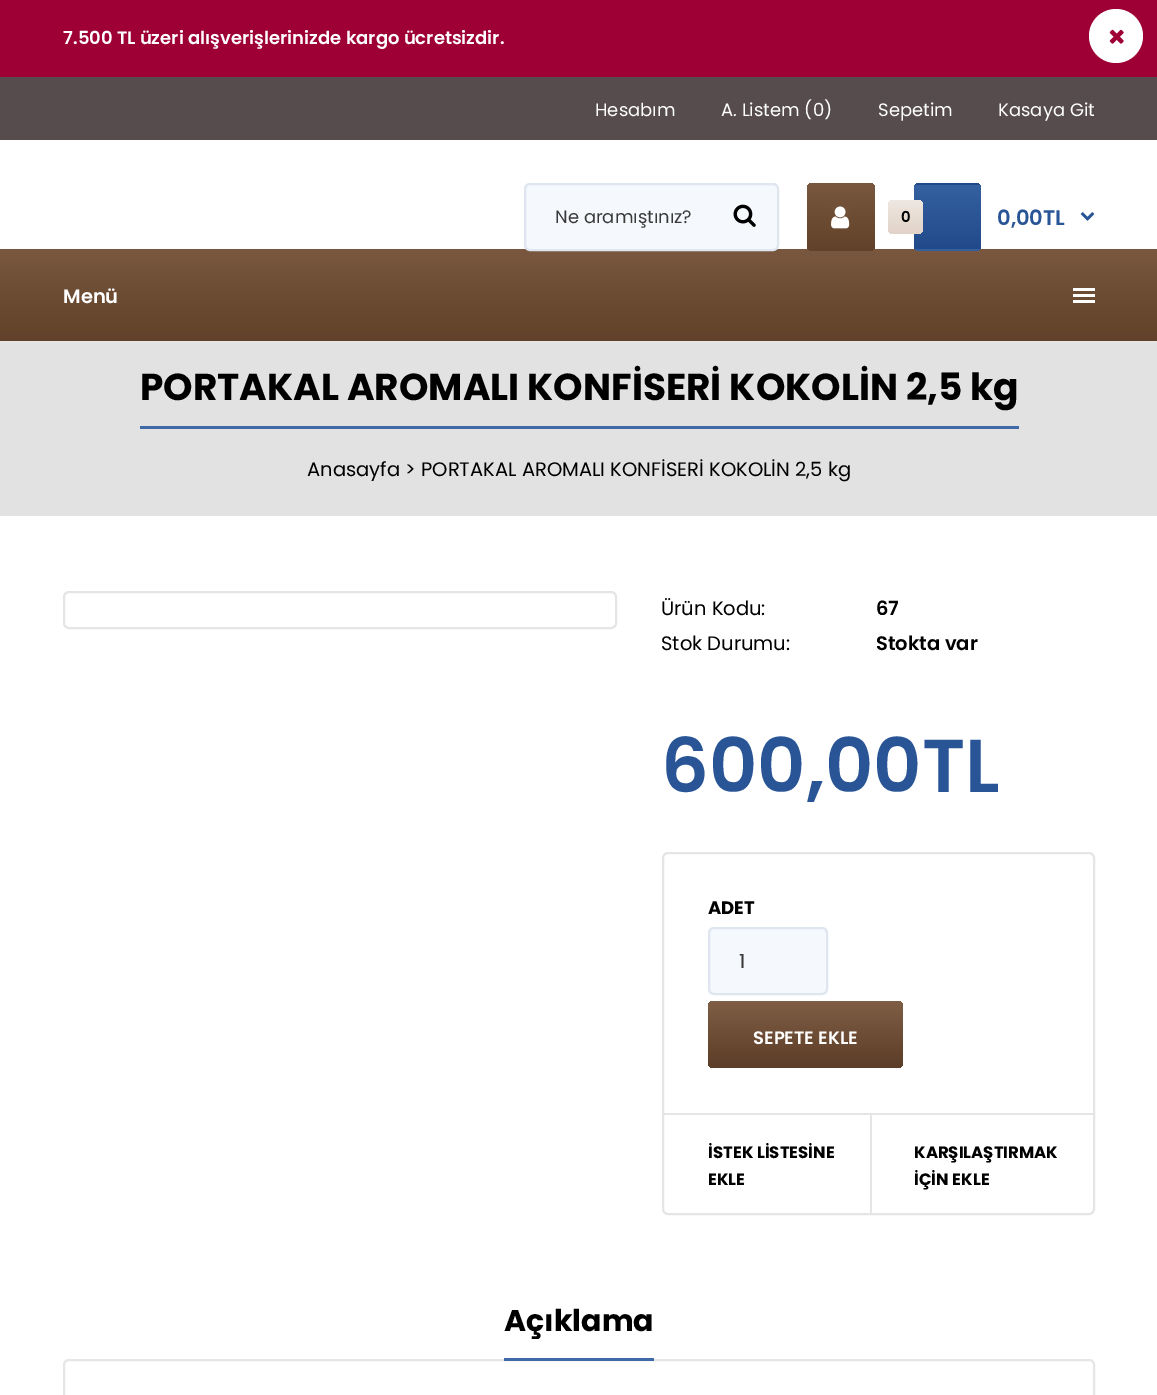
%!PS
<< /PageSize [1157 1395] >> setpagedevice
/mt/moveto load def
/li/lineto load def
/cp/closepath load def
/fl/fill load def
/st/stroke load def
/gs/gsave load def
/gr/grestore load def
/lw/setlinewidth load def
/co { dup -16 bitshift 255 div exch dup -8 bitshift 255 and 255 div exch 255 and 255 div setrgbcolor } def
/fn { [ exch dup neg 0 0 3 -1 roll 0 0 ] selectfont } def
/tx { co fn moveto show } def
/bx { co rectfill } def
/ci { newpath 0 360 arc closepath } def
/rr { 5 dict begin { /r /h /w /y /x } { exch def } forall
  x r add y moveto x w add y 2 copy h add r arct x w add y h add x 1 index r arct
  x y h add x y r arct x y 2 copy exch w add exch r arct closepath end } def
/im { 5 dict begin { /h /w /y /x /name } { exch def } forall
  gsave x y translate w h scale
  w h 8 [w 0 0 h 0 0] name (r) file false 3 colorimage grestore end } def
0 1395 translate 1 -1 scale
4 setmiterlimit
0 0 1157 1395 16#FFFFFF bx
0 0 1157 77 16#9E0035 bx
16#FFFFFF co
1116 36 27 ci fl
(media/1.raw) 1109 29 15 15 im
0 77 1157 63 16#564C4E bx
gs 0 249 mt 1157 249 li 1157 341 li 0 341 li cp clip newpath
<< /ShadingType 2 /ColorSpace /DeviceRGB /Coords [579 249 579 341] /Extend [true true] /Function << /FunctionType 3 /Domain [0 1] /Functions [<< /FunctionType 2 /Domain [0 1] /C0 [.475 .345 .247] /C1 [.384 .255 .165] /N 1 >> << /FunctionType 2 /Domain [0 1] /C0 [.384 .255 .165] /C1 [.384 .255 .165] /N 1 >>] /Bounds [.99] /Encode [0 1 0 1] >> >> shfill gr
16#F5F8FC co
525 184 253 66 5 rr gs fl gr
16#DFE6F0 co
2 lw
st
(media/2.raw) 733 204 23 23 im
gs 807 183 68 68 6 rr clip newpath
<< /ShadingType 2 /ColorSpace /DeviceRGB /Coords [841 183 841 251] /Extend [true true] /Function << /FunctionType 3 /Domain [0 1] /Functions [<< /FunctionType 2 /Domain [0 1] /C0 [.475 .345 .247] /C1 [.384 .255 .165] /N 1 >> << /FunctionType 2 /Domain [0 1] /C0 [.384 .255 .165] /C1 [.384 .255 .165] /N 1 >>] /Bounds [.99] /Encode [0 1 0 1] >> >> shfill gr
(media/3.raw) 831 206 19 23 im
gs
914 183 67 68 6 rr clip newpath
gs 914 185 mt 981 185 li 981 249 li 914 249 li cp clip newpath
<< /ShadingType 2 /ColorSpace /DeviceRGB /Coords [947 185 947 249] /Extend [true true] /Function << /FunctionType 3 /Domain [0 1] /Functions [<< /FunctionType 2 /Domain [0 1] /C0 [.208 .38 .627] /C1 [.133 .29 .545] /N 1 >> << /FunctionType 2 /Domain [0 1] /C0 [.133 .29 .545] /C1 [.133 .29 .545] /N 1 >>] /Bounds [.99] /Encode [0 1 0 1] >> >> shfill gr
gr
gs 888 200 35 34 6 rr clip newpath
<< /ShadingType 2 /ColorSpace /DeviceRGB /Coords [905 200 905 234] /Extend [true true] /Function << /FunctionType 3 /Domain [0 1] /Functions [<< /FunctionType 2 /Domain [0 1] /C0 [.937 .906 .882] /C1 [.882 .827 .784] /N 1 >> << /FunctionType 2 /Domain [0 1] /C0 [.882 .827 .784] /C1 [.882 .827 .784] /N 1 >>] /Bounds [.99] /Encode [0 1 0 1] >> >> shfill gr
gs
914 183 67 68 6 rr clip newpath
gs 914 183 mt 981 183 li 981 185 li 914 185 li cp clip newpath
<< /ShadingType 2 /ColorSpace /DeviceRGB /Coords [947 120 947 185] /Extend [true true] /Function << /FunctionType 3 /Domain [0 1] /Functions [<< /FunctionType 2 /Domain [0 1] /C0 [.208 .38 .627] /C1 [.133 .29 .545] /N 1 >> << /FunctionType 2 /Domain [0 1] /C0 [.133 .29 .545] /C1 [.133 .29 .545] /N 1 >>] /Bounds [.99] /Encode [0 1 0 1] >> >> shfill gr
gs 914 249 mt 981 249 li 981 251 li 914 251 li cp clip newpath
<< /ShadingType 2 /ColorSpace /DeviceRGB /Coords [947 249 947 314] /Extend [true true] /Function << /FunctionType 3 /Domain [0 1] /Functions [<< /FunctionType 2 /Domain [0 1] /C0 [.208 .38 .627] /C1 [.133 .29 .545] /N 1 >> << /FunctionType 2 /Domain [0 1] /C0 [.133 .29 .545] /C1 [.133 .29 .545] /N 1 >>] /Bounds [.99] /Encode [0 1 0 1] >> >> shfill gr
gr
(media/4.raw) 1080 212 15 9 im
1073 288 22 3 16#FFFFFF bx
1073 294 22 3 16#FFFFFF bx
1073 300 22 3 16#FFFFFF bx
0 343 1157 173 16#E2E2E2 bx
0 341 1157 2 16#E5E5E5 bx
140 426 879 3 16#3F69A7 bx
16#E5E5E5 co
64 592 552 36 5 rr st
663 853 431 361 5 rr st
16#F5F8FC co
709 928 118 66 5 rr gs fl gr
16#DFE6F0 co
st
gs 708 1001 195 67 6 rr clip newpath
<< /ShadingType 2 /ColorSpace /DeviceRGB /Coords [806 1001 806 1068] /Extend [true true] /Function << /FunctionType 3 /Domain [0 1] /Functions [<< /FunctionType 2 /Domain [0 1] /C0 [.498 .369 .271] /C1 [.361 .239 .153] /N 1 >> << /FunctionType 2 /Domain [0 1] /C0 [.361 .239 .153] /C1 [.361 .239 .153] /N 1 >>] /Bounds [.99] /Encode [0 1 0 1] >> >> shfill gr
663 1113 431 2 16#E5E5E5 bx
870 1115 2 99 16#E5E5E5 bx
16#E6E6E6 co
64 1360 1030 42 5 rr st
504 1358 150 3 16#3F69A7 bx
(7.500 TL üzeri alışverişlerinizde kargo ücretsizdir.) 63 44 /Poppins-SemiBold 18 16#FFFFFF tx
(Hesabım) 595 116 /Poppins-Regular 18 16#FFFFFF tx
(A. Listem \(0\)) 721 116 /Poppins-Regular 18 16#FFFFFF tx
(Sepetim) 878 116 /Poppins-Regular 18 16#FFFFFF tx
(Kasaya Git) 998 116 /Poppins-Regular 18 16#FFFFFF tx
(Ne aramıştınız?) 555 223 /Poppins-Regular 18 16#3A3A3A tx
(0) 901 222 /Poppins-SemiBold 15 16#000000 tx
(0,00TL) 997 225 /Poppins-SemiBold 21 16#295597 tx
(Menü) 63 303 /Poppins-SemiBold 19.5 16#FFFFFF tx
(PORTAKAL AROMALI KONFİSERİ KOKOLİN 2,5 kg) 140 400 /Poppins-Bold 37.5 16#000000 tx
(Anasayfa >) 307 476 /Poppins-Regular 19.5 16#000000 tx
(PORTAKAL AROMALI KONFİSERİ KOKOLİN 2,5 kg) 421 476 /Poppins-Regular 19.5 16#000000 tx
(Ürün Kodu:) 661 615 /Poppins-Regular 19.5 16#000000 tx
(67) 876 615 /Poppins-SemiBold 19.5 16#000000 tx
(Stok Durumu:) 661 650 /Poppins-Regular 19.5 16#000000 tx
(Stokta var) 876 650 /Poppins-SemiBold 19.5 16#000000 tx
(600,00TL) 661 792 /Poppins-SemiBold 75 16#295597 tx
(ADET) 708 914 /Poppins-Bold 18 16#000000 tx
(1) 739 968 /Poppins-Regular 19.5 16#3A3A3A tx
(SEPETE EKLE) 753 1044 /Poppins-SemiBold 18 16#FFFFFF tx
(İSTEK LİSTESİNE) 708 1158 /Poppins-Bold 16.5 16#000000 tx
(EKLE) 708 1185 /Poppins-Bold 16.5 16#000000 tx
(KARŞILAŞTIRMAK) 914 1158 /Poppins-Bold 16.5 16#000000 tx
(İÇİN EKLE) 914 1185 /Poppins-Bold 16.5 16#000000 tx
(Açıklama) 504 1331 /Poppins-Bold 30 16#000000 tx
showpage
